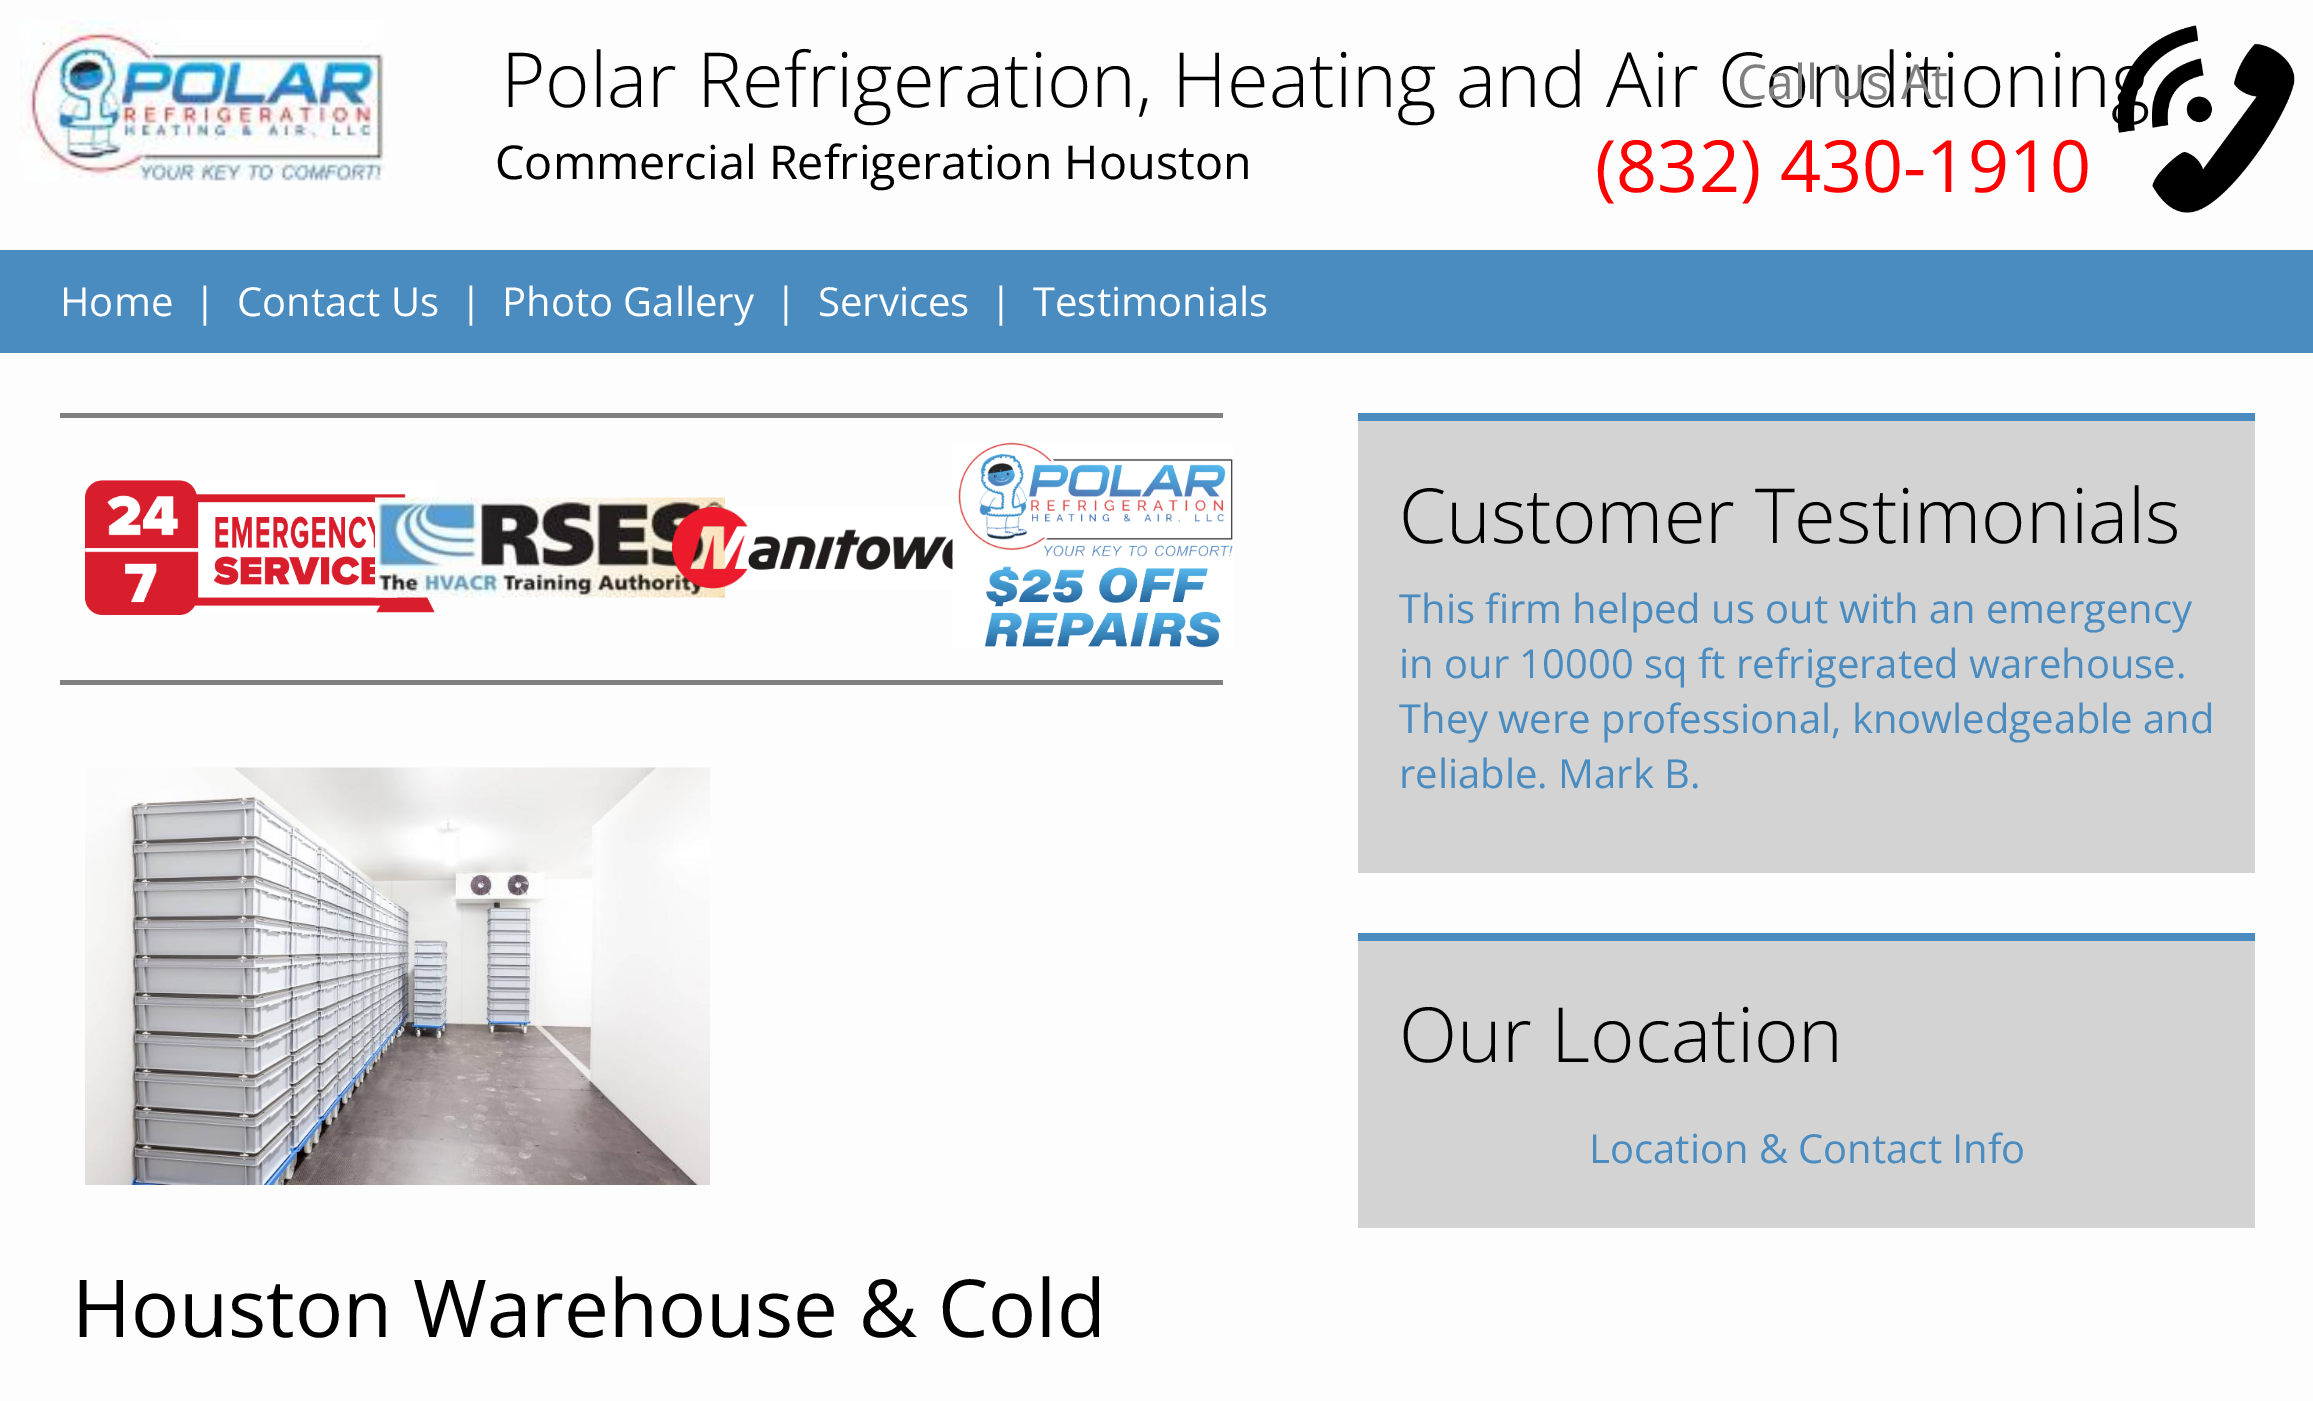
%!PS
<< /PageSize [2313 1401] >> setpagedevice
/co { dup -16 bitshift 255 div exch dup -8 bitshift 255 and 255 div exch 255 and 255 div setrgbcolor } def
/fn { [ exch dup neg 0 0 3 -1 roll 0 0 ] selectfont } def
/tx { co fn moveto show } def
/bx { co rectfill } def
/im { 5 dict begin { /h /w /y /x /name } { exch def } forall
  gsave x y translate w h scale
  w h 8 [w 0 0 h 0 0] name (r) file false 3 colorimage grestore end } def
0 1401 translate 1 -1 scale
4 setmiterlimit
0 0 2313 1401 16#FDFDFD bx
(media/1.raw) 20 20 367 161 im
0 250 2313 103 16#4A8CC0 bx
1358 421 897 452 16#D3D3D3 bx
1358 413 897 8 16#4A8CC0 bx
1358 941 897 287 16#D3D3D3 bx
1358 933 897 8 16#4A8CC0 bx
60 413 1163 5 16#808080 bx
60 680 1163 5 16#808080 bx
(media/3.raw) 85 480 350 135 im
(media/4.raw) 375 497 350 101 im
(media/5.raw) 672 507 281 82 im
(media/6.raw) 952 442 281 206 im
(media/7.raw) 85 767 625 418 im
(Polar Refrigeration, Heating and Air Conditioning) 501 107 /OpenSans-Light 76 16#000000 tx
(Commercial Refrigeration Houston) 495 179 /OpenSans-Regular 46.75 16#000000 tx
(Call Us At) 1737 99 /OpenSans-Regular 48 16#808080 tx
(\(832\) 430-1910) 1595 192 /OpenSans-Regular 72 16#FF0000 tx
(media/2.raw) 2117 25 178 188 im
(Home) 60 316 /OpenSans-Regular 40 16#FFFFFF tx
(|) 194 316 /OpenSans-Regular 40 16#FFFFFF tx
(Contact Us) 237 316 /OpenSans-Regular 40 16#FFFFFF tx
(|) 460 316 /OpenSans-Regular 40 16#FFFFFF tx
(Photo Gallery) 502 316 /OpenSans-Regular 40 16#FFFFFF tx
(|) 775 316 /OpenSans-Regular 40 16#FFFFFF tx
(Services) 818 316 /OpenSans-Regular 40 16#FFFFFF tx
(|) 990 316 /OpenSans-Regular 40 16#FFFFFF tx
(Testimonials) 1033 316 /OpenSans-Regular 40 16#FFFFFF tx
(Customer Testimonials) 1399 543 /OpenSans-Light 76 16#000000 tx
(This firm helped us out with an emergency) 1399 623 /OpenSans-Regular 40 16#4A8CC0 tx
(in our 10000 sq ft refrigerated warehouse.) 1399 678 /OpenSans-Regular 40 16#4A8CC0 tx
(They were professional, knowledgeable and) 1399 733 /OpenSans-Regular 40 16#4A8CC0 tx
(reliable. Mark B.) 1399 788 /OpenSans-Regular 40 16#4A8CC0 tx
(Our Location) 1399 1062 /OpenSans-Light 76 16#000000 tx
(Location & Contact Info) 1589 1163 /OpenSans-Regular 40 16#4A8CC0 tx
(Houston Warehouse & Cold) 72 1337 /OpenSans-Regular 80 16#000000 tx
showpage
